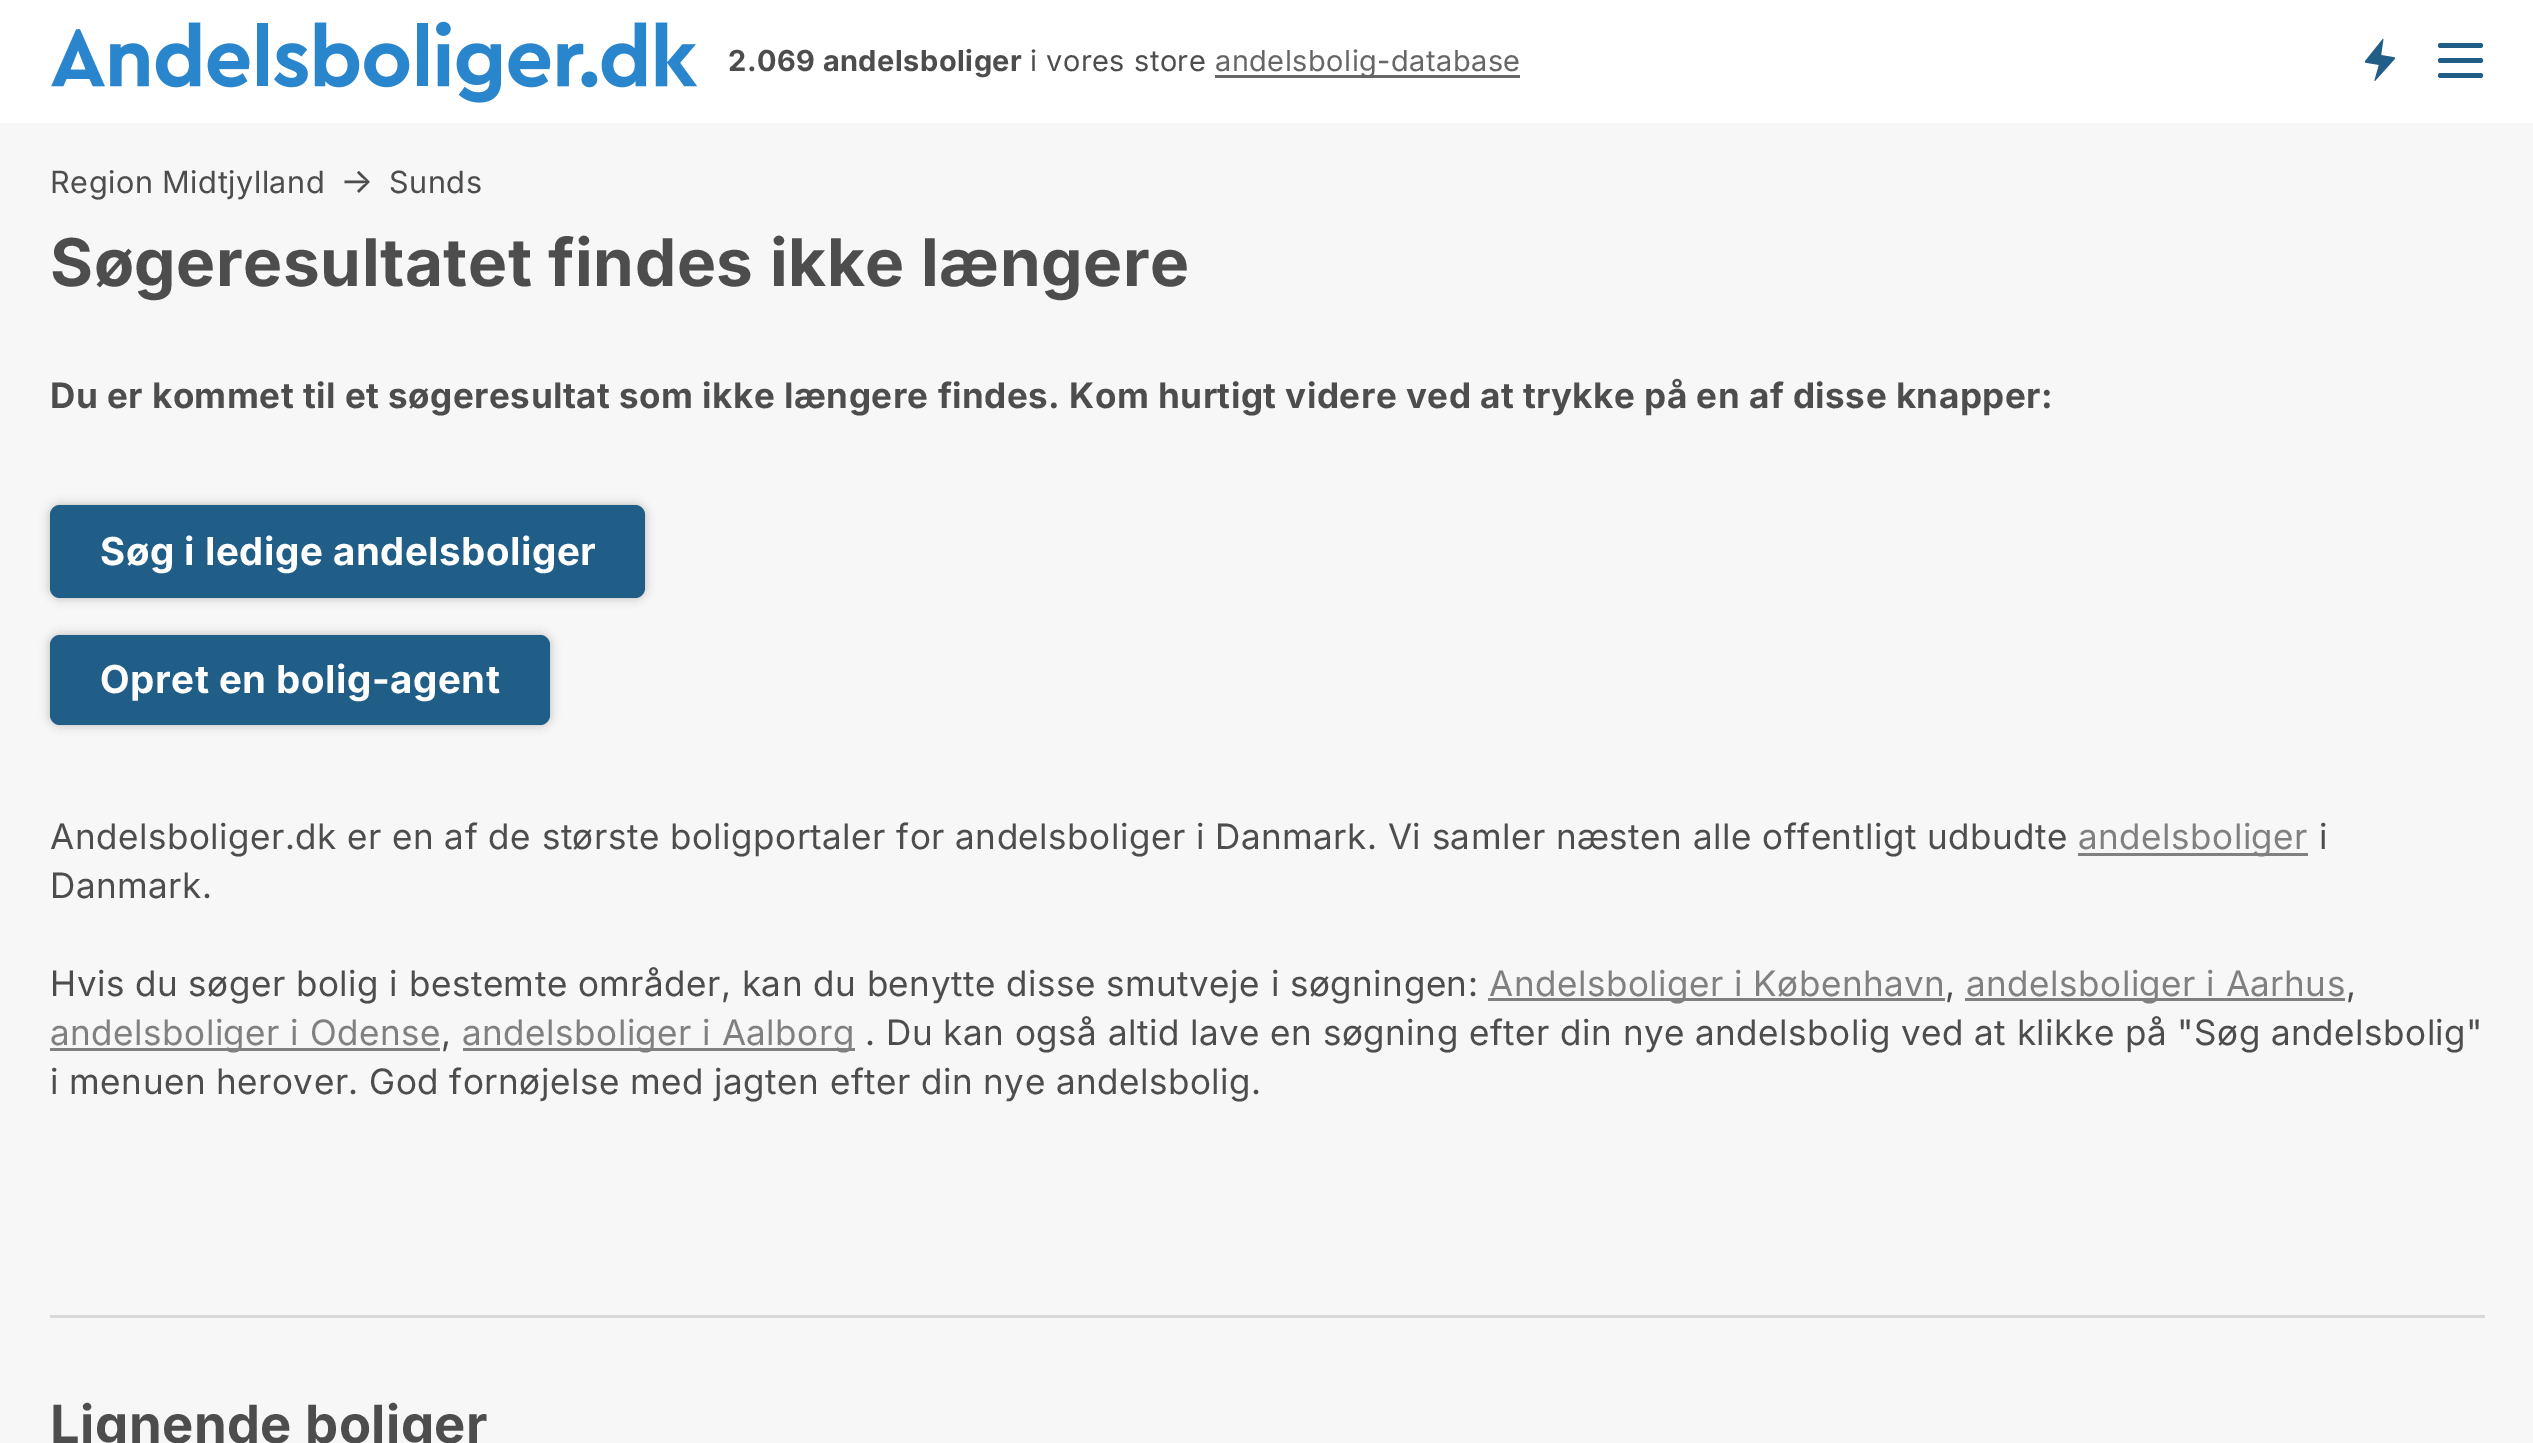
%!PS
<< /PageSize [2533 1443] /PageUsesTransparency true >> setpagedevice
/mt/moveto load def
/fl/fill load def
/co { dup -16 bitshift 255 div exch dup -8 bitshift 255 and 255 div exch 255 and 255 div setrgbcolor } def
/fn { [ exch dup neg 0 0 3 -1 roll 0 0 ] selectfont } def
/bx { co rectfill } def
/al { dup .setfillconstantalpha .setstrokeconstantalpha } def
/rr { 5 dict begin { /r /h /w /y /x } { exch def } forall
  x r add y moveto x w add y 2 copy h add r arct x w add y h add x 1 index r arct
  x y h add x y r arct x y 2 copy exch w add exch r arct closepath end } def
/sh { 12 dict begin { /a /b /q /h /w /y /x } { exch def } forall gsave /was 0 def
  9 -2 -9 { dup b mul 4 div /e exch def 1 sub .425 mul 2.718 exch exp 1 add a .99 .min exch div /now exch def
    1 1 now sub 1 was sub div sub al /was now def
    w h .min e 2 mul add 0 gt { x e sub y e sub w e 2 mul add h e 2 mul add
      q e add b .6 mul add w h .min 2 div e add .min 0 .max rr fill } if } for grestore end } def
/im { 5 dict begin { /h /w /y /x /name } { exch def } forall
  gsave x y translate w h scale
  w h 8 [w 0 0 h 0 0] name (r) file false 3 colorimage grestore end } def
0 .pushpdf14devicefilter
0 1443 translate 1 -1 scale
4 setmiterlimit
0 0 2533 1443 16#FFFFFF bx
(media/1.raw) 51 21 647 82 im
1215 75 305 3 16#666666 bx
(media/2.raw) 2364 38 31 43 im
16#215E87 co
2438 43 45 5 2.5 rr fl
2438 58 45 5 2.5 rr fl
2438 73 45 5 2.5 rr fl
0 123 2533 1320 16#F7F7F7 bx
16#000000 co
50 505 595 93 10 5 .25 sh
16#215E87 co
50 505 595 93 10 rr fl
16#000000 co
50 635 500 90 10 5 .25 sh
16#215E87 co
50 635 500 90 10 rr fl
2078 853 230 3 16#808080 bx
1488 998 457 3 16#808080 bx
1965 998 380 3 16#808080 bx
50 1048 390 3 16#808080 bx
463 1048 392 3 16#808080 bx
50 1315 2435 3 16#D8D8D8 bx
/Inter-Bold 28.9 fn
16#4D4D4D co
728 71 mt .5 0 (2.069 andelsboliger) ashow
/Inter-Regular 28.9 fn
1030 71 mt .5 0 (i vores store) ashow
16#666666 co
1215 71 mt .5 0 (andelsbolig-database) ashow
/Inter-Regular 30.6 fn
16#4D4D4D co
50 193 mt .5 0 (Region Midtjylland) ashow
/Inter-Regular 35 fn
340 193 mt .5 0 (→) ashow
/Inter-Regular 30.6 fn
389 193 mt .5 0 (Sunds) ashow
/Inter-Bold 65.75 fn
50 286 mt .5 0 (Søgeresultatet findes ikke længere) ashow
/Inter-Bold 35 fn
50 408 mt .5 0 (Du er kommet til et søgeresultat som ikke længere findes. Kom hurtigt videre ved at trykke på en af disse knapper:) ashow
/Inter-Bold 38.5 fn
16#FFFFFF co
100 565 mt .5 0 (Søg i ledige andelsboliger) ashow
100 693 mt .5 0 (Opret en bolig-agent) ashow
/Inter-Regular 35 fn
16#4D4D4D co
50 849 mt .5 0 (Andelsboliger.dk er en af de største boligportaler for andelsboliger i Danmark. Vi samler næsten alle offentligt udbudte) ashow
16#808080 co
2078 849 mt .5 0 (andelsboliger) ashow
16#4D4D4D co
2319 849 mt .5 0 (i) ashow
50 898 mt .5 0 (Danmark.) ashow
50 996 mt .5 0 (Hvis du søger bolig i bestemte områder, kan du benytte disse smutveje i søgningen:) ashow
16#808080 co
1489 996 mt .5 0 (Andelsboliger i København) ashow
16#4D4D4D co
1945 996 mt .5 0 (,) ashow
16#808080 co
1966 996 mt .5 0 (andelsboliger i Aarhus) ashow
16#4D4D4D co
2346 996 mt .5 0 (,) ashow
16#808080 co
50 1045 mt .5 0 (andelsboliger i Odense) ashow
16#4D4D4D co
441 1045 mt .5 0 (,) ashow
16#808080 co
462 1045 mt .5 0 (andelsboliger i Aalborg) ashow
16#4D4D4D co
865 1045 mt .5 0 (. Du kan også altid lave en søgning efter din nye andelsbolig ved at klikke på "Søg andelsbolig") ashow
50 1094 mt .5 0 (i menuen herover. God fornøjelse med jagten efter din nye andelsbolig.) ashow
/Inter-Bold 52.5 fn
50 1443 mt .5 0 (Lignende boliger) ashow
.poppdf14devicefilter showpage
